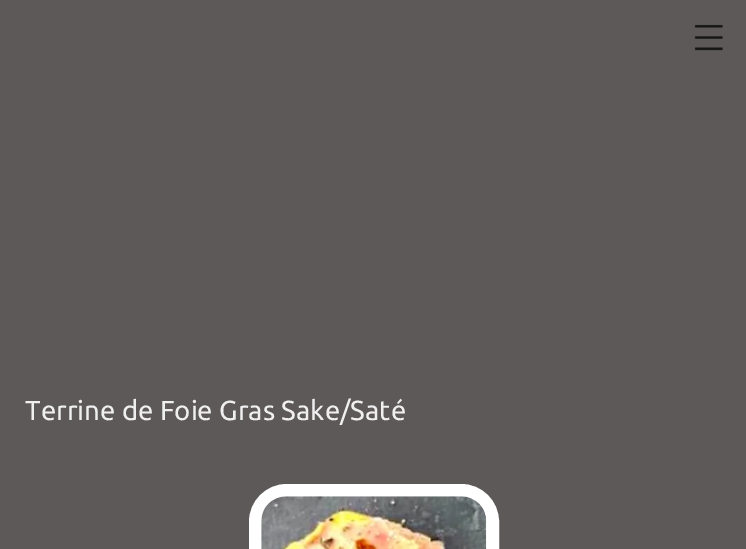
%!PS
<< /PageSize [746 549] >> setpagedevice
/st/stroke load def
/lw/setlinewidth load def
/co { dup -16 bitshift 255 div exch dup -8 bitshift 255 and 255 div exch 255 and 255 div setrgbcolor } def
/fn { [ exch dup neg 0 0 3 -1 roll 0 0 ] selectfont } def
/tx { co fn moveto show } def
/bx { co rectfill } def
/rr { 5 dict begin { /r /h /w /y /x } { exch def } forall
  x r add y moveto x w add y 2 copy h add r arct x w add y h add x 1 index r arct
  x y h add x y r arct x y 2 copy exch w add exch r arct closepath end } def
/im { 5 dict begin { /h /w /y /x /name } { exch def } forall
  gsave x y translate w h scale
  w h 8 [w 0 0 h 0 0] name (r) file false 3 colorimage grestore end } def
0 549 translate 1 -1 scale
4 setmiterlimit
0 0 746 549 16#5E5959 bx
(media/1.raw) 694 24 29 27 im
16#FFFFFF co
13 lw
255.5 490.5 237 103 31.5 rr st
(media/2.raw) 261 496 226 53 im
(Terrine de Foie Gras Sake/Saté) 25 420 /Ubuntu-Regular 27.5 16#EFEFEF tx
showpage
